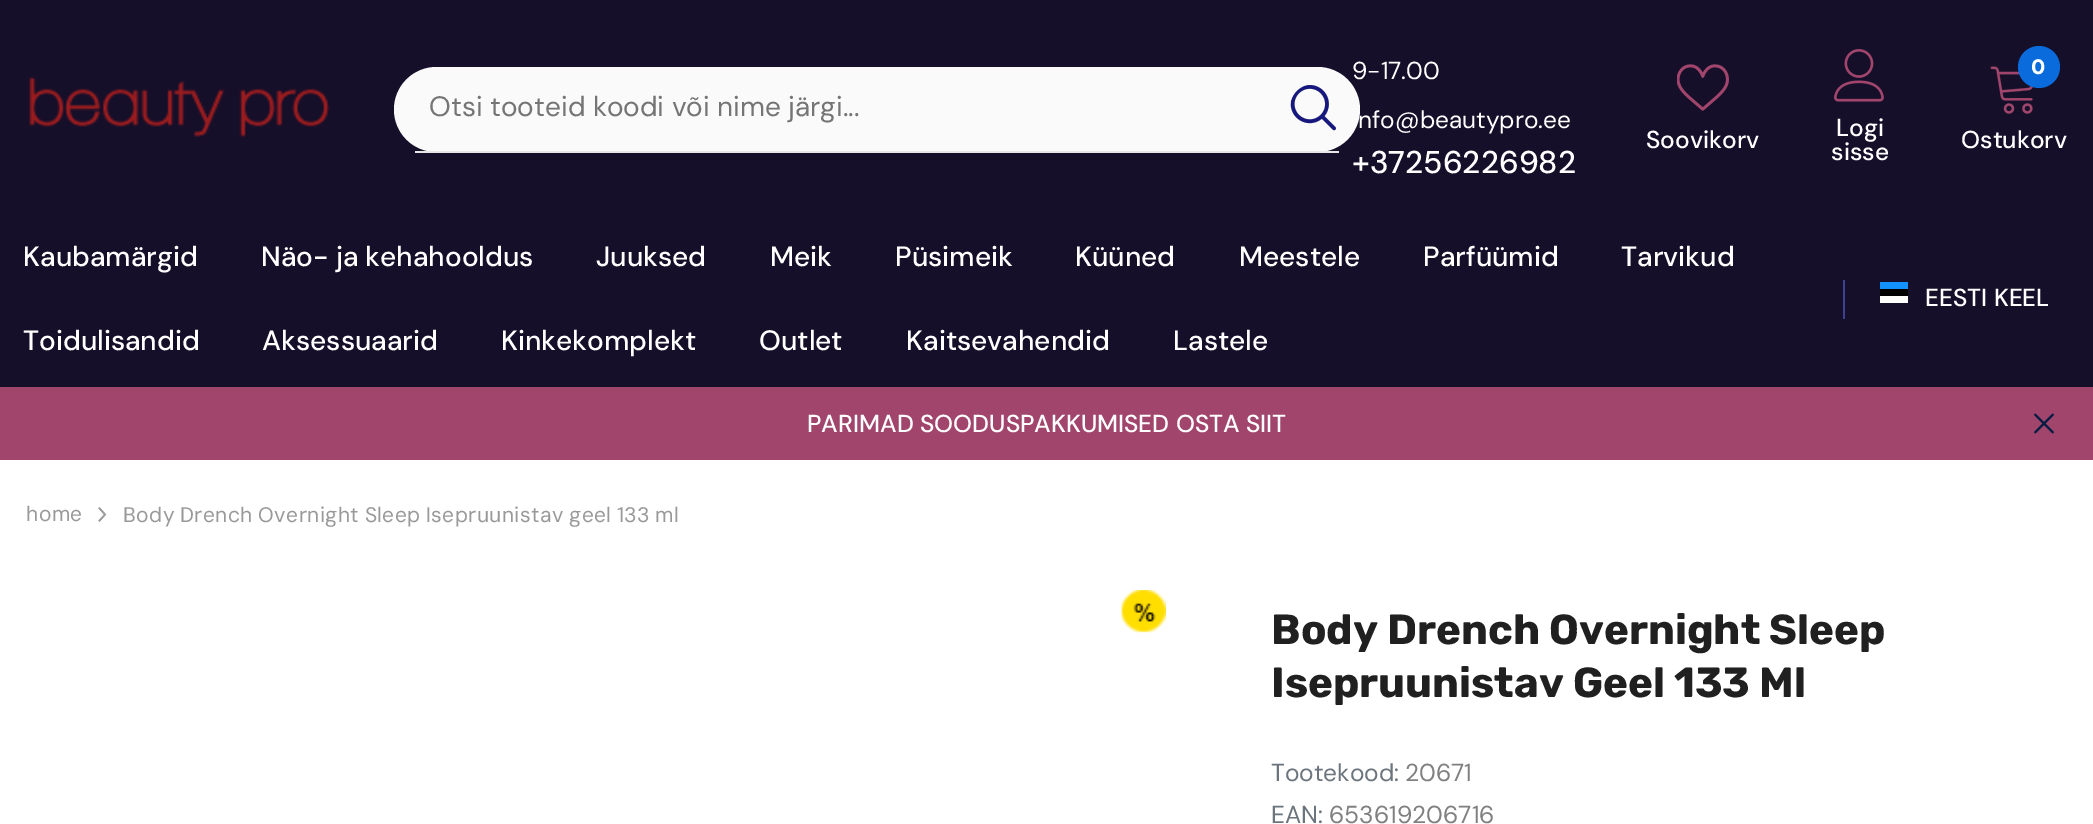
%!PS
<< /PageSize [2093 824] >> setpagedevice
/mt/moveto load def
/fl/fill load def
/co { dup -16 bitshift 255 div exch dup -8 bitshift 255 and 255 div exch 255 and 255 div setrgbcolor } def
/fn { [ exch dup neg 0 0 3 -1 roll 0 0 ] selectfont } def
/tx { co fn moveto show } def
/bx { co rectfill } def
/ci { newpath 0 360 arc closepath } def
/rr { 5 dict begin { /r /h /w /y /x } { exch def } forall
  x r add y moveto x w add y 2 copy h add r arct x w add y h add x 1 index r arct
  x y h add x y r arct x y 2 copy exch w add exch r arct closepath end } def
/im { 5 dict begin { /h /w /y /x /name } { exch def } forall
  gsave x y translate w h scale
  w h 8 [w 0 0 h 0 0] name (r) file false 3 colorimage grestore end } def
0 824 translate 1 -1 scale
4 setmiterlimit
0 0 2093 824 16#FFFFFF bx
0 0 2093 387 16#160F29 bx
(media/1.raw) 29 76 301 61 im
16#FAFAFA co
394 67 966 85 42.5 rr fl
415 151 924 2 16#E7E7E7 bx
(media/2.raw) 1290 85 46 46 im
(media/3.raw) 1677 64 52 47 im
(media/4.raw) 1834 49 50 53 im
(media/5.raw) 1990 66 43 48 im
16#0A6CDC co
2039 67 21 ci fl
1843 280 2 39 16#3E4093 bx
1880 289 28 7 16#000000 bx
1880 296 28 7 16#FFFFFF bx
1880 282 28 7 16#1291FF bx
0 387 2093 73 16#A1456D bx
(media/6.raw) 2034 413 20 21 im
(media/7.raw) 98 507 9 15 im
(media/8.raw) 1121 590 45 43 im
(Otsi tooteid koodi või nime järgi...) 429 116 /DMSans-Regular 28 16#757575 tx
(9-17.00) 1352 79 /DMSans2-Regular 24.5 16#FFFFFF tx
(nfo@beautypro.ee) 1358 128 /DMSans2-Regular 24.5 16#FFFFFF tx
(+37256226982) 1352 173 /DMSans-Medium 31.5 16#FFFFFF tx
(Soovikorv) 1646 148 /DMSans2-Medium 24.5 16#FFFFFF tx
(Logi) 1836 136 /DMSans2-Medium 24.5 16#FFFFFF tx
(sisse) 1831 160 /DMSans2-Medium 24.5 16#FFFFFF tx
/DMSans-Black 21 fn
2031 74 mt .42 0 (0) ashow
(Ostukorv) 1961 148 /DMSans2-Medium 24.5 16#FFFFFF tx
(Kaubamärgid) 23 266 /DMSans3-Medium 28 16#FFFFFF tx
(Näo- ja kehahooldus) 261 266 /DMSans3-Medium 28 16#FFFFFF tx
(Juuksed) 596 266 /DMSans3-Medium 28 16#FFFFFF tx
(Meik) 770 266 /DMSans3-Medium 28 16#FFFFFF tx
(Püsimeik) 895 266 /DMSans3-Medium 28 16#FFFFFF tx
(Küüned) 1075 266 /DMSans3-Medium 28 16#FFFFFF tx
(Meestele) 1239 266 /DMSans3-Medium 28 16#FFFFFF tx
(Parfüümid) 1423 266 /DMSans3-Medium 28 16#FFFFFF tx
(Tarvikud) 1621 266 /DMSans3-Medium 28 16#FFFFFF tx
(Toidulisandid) 23 350 /DMSans3-Medium 28 16#FFFFFF tx
(Aksessuaarid) 262 350 /DMSans3-Medium 28 16#FFFFFF tx
(Kinkekomplekt) 501 350 /DMSans3-Medium 28 16#FFFFFF tx
(Outlet) 759 350 /DMSans3-Medium 28 16#FFFFFF tx
(Kaitsevahendid) 906 350 /DMSans3-Medium 28 16#FFFFFF tx
(Lastele) 1173 350 /DMSans3-Medium 28 16#FFFFFF tx
(EESTI KEEL) 1925 306 /DMSans2-Medium 24.5 16#FFFFFF tx
(PARIMAD SOODUSPAKKUMISED OSTA SIIT) 807 432 /DMSans2-Medium 24.5 16#FFFFFF tx
/DMSans3-Regular 21 fn
16#999999 co
26 521 mt .42 0 (home) ashow
123 522 mt -.75 0 32 .42 0 (Body Drench Overnight Sleep Isepruunistav geel 133 ml) awidthshow
(Body Drench Overnight Sleep) 1271 644 /Rubik-Bold 42 16#202020 tx
(Isepruunistav Geel 133 Ml) 1271 697 /Rubik-Bold 42 16#202020 tx
(Tootekood:) 1271 781 /DMSans2-Regular 24.5 16#6C757D tx
(20671) 1405 781 /DMSans2-Regular 24.5 16#808080 tx
(EAN:) 1271 823 /DMSans2-Regular 24.5 16#6C757D tx
(653619206716) 1329 823 /DMSans2-Regular 24.5 16#808080 tx
showpage
